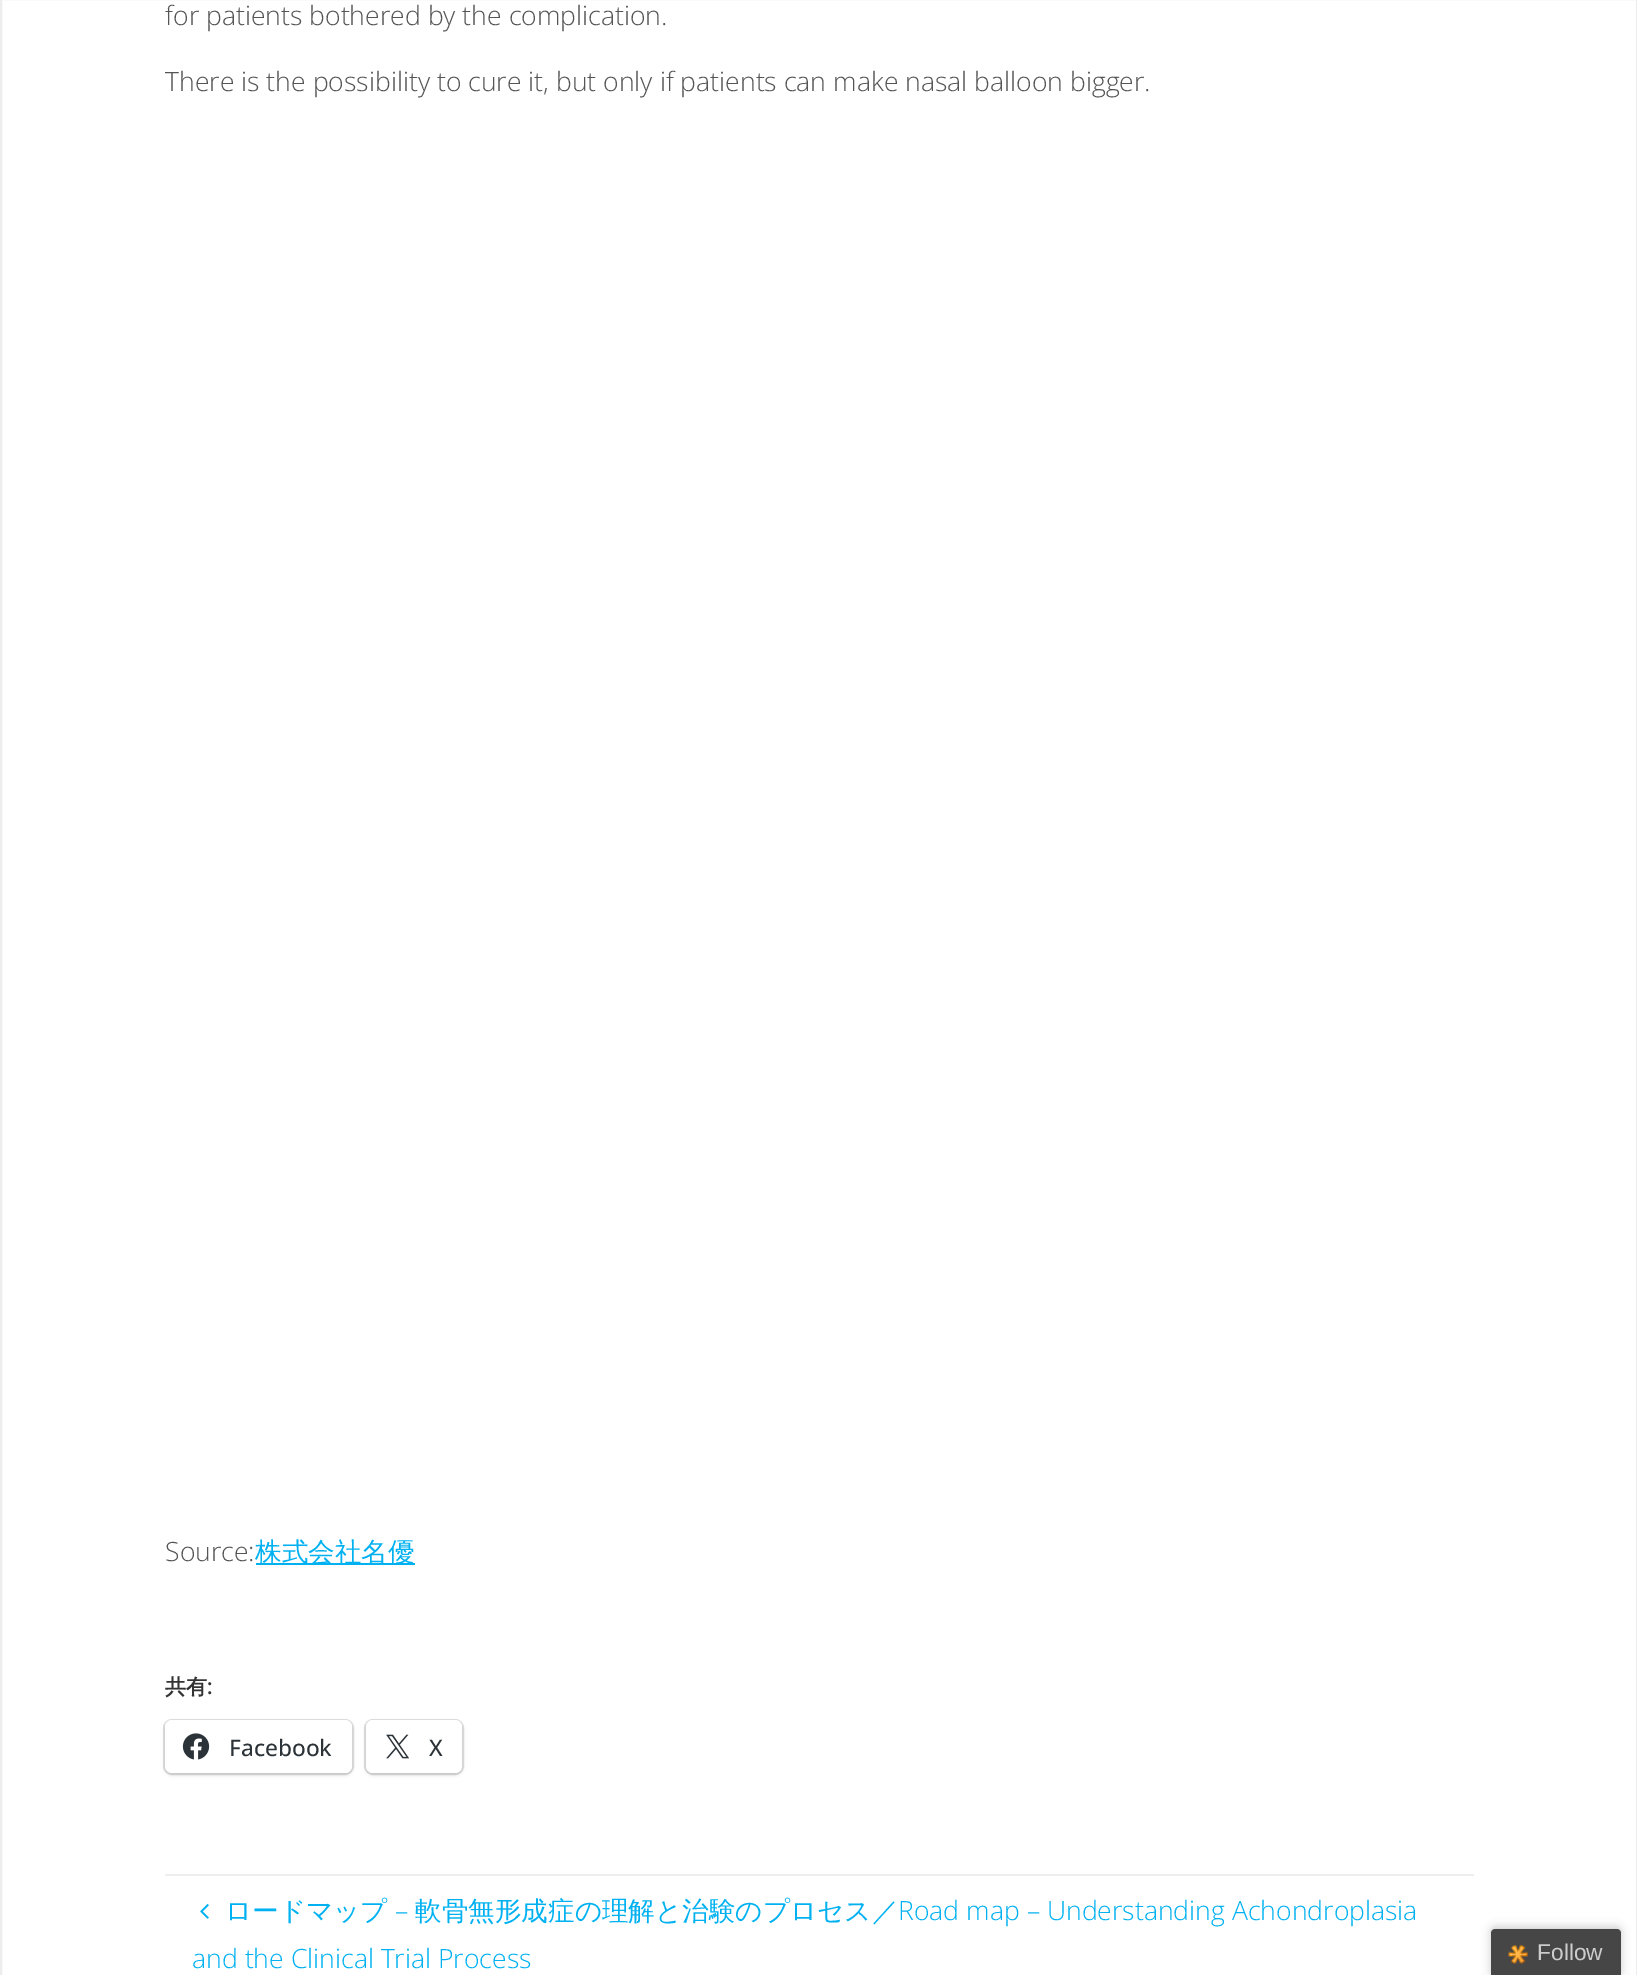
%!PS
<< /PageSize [1637 1975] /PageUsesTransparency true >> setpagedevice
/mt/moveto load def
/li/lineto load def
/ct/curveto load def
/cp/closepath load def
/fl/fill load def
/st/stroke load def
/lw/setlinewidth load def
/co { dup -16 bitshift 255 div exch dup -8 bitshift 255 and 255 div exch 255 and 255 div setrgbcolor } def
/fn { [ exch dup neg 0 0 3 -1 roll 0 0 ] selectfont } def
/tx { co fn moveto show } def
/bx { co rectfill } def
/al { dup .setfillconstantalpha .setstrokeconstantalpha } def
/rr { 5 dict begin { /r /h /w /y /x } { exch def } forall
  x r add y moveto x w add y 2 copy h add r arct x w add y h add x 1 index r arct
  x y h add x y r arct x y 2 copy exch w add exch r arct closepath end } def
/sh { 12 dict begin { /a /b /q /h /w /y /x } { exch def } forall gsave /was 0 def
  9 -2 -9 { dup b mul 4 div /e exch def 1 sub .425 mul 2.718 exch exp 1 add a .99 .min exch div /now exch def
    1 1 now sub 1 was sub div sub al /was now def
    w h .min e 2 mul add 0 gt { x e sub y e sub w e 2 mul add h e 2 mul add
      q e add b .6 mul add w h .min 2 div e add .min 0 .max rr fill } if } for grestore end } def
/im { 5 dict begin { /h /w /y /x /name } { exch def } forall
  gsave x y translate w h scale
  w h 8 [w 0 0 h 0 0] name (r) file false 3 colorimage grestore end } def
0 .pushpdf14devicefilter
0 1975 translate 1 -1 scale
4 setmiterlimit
0 0 1637 1975 16#FFFFFF bx
16#EDEDED co
2 lw
1 -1 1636 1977 rectstroke
256 1563 159 2 16#00B1F2 bx
16#E0E0E0 co
164 1720 189 54 8 rr st
16#000000 co
165 1722 187 53 7 2 .12 sh
16#FFFFFF co
165 1720 187 53 7 rr fl
(media/1.raw) 182 1733 28 27 im
16#E0E0E0 co
365 1720 98 54 8 rr st
16#000000 co
366 1722 96 53 7 2 .12 sh
16#FFFFFF co
366 1720 96 53 7 rr fl
(media/2.raw) 386 1734 24 25 im
165 1874 1309 2 16#EEEEEE bx
(media/3.raw) 200 1904 9 15 im
16#000000 co
1491 1927 130 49 4 4.5 .2 sh
16#464646 co
1495 1929 mt 1617 1929 li 1619 1929 1621 1931 1621 1933 ct 1621 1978 li 1491 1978 li 1491 1933 li 1491 1931 1493 1929 1495 1929 ct cp fl
(media/4.raw) 1508 1945 20 19 im
(for patients bothered by the complication.) 165 25 /OpenSans-Light 26.6 16#555555 tx
(There is the possibility to cure it, but only if patients can make nasal balloon bigger.) 165 91 /OpenSans-Light 26.6 16#555555 tx
(Source:) 165 1561 /OpenSans-Light 26.6 16#555555 tx
(株式会社名優) 255 1561 /WenQuanYiZenHei-Medium 26.6 16#00B1F2 tx
(共有) 165 1694 /WenQuanYiZenHei-Bold 21 16#333333 tx
(:) 207 1694 /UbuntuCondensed-Bold 21 16#333333 tx
(Facebook) 229 1756 /OpenSans-Medium 22.75 16#2C3338 tx
(X) 429 1756 /OpenSans-Medium 22.75 16#2C3338 tx
(ロードマップ) 225 1920 /WenQuanYiZenHei-Medium 26.6 16#00B1F2 tx
(–) 395 1920 /OpenSans-Light 26.6 16#00B1F2 tx
(軟骨無形成症の理解と治験のプロセス／) 415 1920 /WenQuanYiZenHei-Medium 26.6 16#00B1F2 tx
(Road map – Understanding Achondroplasia) 898 1920 /OpenSans-Light 26.6 16#00B1F2 tx
(and the Clinical Trial Process) 192 1968 /OpenSans-Light 26.6 16#00B1F2 tx
(Follow) 1537 1960 /LiberationSans-Regular 22.75 16#CCCCCC tx
.poppdf14devicefilter showpage
